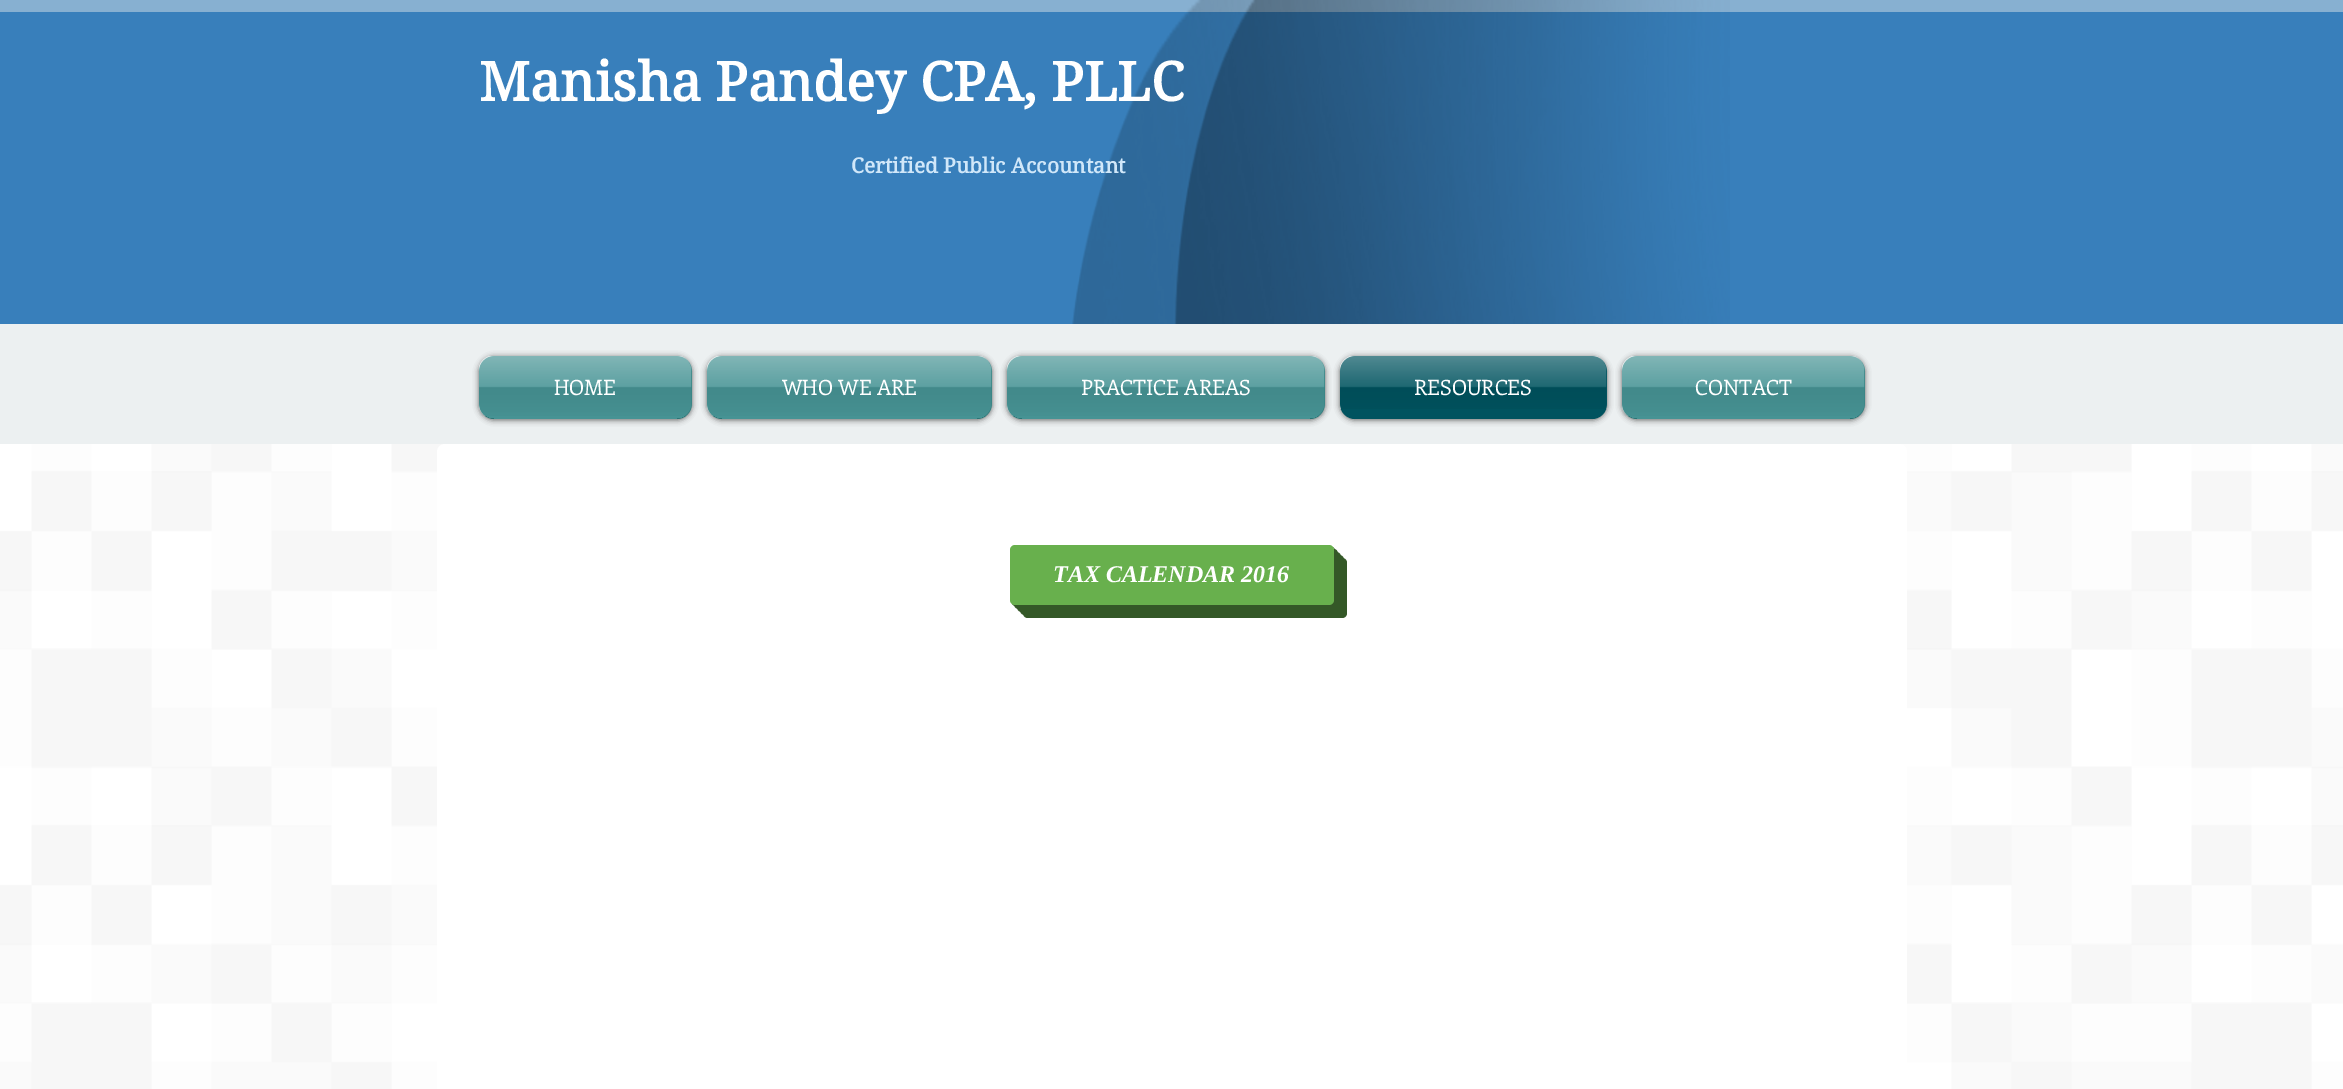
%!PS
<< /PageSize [2343 1089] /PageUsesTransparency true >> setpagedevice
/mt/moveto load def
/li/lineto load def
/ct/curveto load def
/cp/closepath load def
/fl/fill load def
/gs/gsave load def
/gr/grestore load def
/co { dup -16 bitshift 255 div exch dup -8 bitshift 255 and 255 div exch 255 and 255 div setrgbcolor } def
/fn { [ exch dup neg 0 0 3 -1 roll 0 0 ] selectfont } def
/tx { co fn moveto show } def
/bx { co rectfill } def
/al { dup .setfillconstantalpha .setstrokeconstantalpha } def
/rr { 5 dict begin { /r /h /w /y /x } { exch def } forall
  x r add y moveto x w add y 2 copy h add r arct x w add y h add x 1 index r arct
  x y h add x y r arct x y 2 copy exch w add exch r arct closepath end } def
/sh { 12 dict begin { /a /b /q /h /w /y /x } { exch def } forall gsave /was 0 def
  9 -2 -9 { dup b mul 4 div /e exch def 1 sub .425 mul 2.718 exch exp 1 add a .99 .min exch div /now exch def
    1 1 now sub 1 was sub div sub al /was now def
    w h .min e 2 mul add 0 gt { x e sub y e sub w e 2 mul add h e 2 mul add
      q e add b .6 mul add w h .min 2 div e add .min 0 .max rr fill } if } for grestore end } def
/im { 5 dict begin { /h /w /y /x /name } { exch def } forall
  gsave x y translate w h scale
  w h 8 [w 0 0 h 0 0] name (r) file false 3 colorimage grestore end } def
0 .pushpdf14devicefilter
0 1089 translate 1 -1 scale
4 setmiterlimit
0 0 2343 1089 16#FFFFFF bx
0 12 2343 312 16#387FBB bx
0 0 2343 12 16#87B0D1 bx
(media/1.raw) 1072 0 658 324 im
0 324 2343 120 16#ECF0F1 bx
gs
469 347 mt 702 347 li 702 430 li 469 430 li cp 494 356 mt 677 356 li 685.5 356 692 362.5 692 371 ct 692 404 li 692 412.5 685.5 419 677 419 ct 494 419 li 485.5 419 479 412.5 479 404 ct 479 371 li 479 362.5 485.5 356 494 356 ct cp eoclip newpath
16#000000 co
479 357 213 63 15 3 .6 sh
gr
0.7 al
16#006C6D co
479 356 213 63 15 rr fl
1 al
(media/2.raw) 479 356 213 60 im
gs
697 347 mt 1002 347 li 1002 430 li 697 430 li cp 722 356 mt 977 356 li 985.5 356 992 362.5 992 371 ct 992 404 li 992 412.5 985.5 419 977 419 ct 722 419 li 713.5 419 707 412.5 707 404 ct 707 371 li 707 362.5 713.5 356 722 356 ct cp eoclip newpath
16#000000 co
707 357 285 63 15 3 .6 sh
gr
0.7 al
707 356 285 63 15 rr fl
1 al
(media/3.raw) 707 356 285 60 im
gs
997 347 mt 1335 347 li 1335 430 li 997 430 li cp 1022 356 mt 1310 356 li 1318.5 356 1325 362.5 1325 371 ct 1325 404 li 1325 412.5 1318.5 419 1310 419 ct 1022 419 li 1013.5 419 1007 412.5 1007 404 ct 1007 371 li 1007 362.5 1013.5 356 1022 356 ct cp eoclip newpath
16#000000 co
1007 357 318 63 15 3 .6 sh
gr
0.7 al
1007 356 318 63 15 rr fl
1 al
(media/4.raw) 1007 356 318 60 im
16#000000 co
1340 357 267 63 15 3 .6 sh
16#00535F co
1340 356 267 63 15 rr fl
(media/5.raw) 1340 356 267 53 im
gs
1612 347 mt 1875 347 li 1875 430 li 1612 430 li cp 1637 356 mt 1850 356 li 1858.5 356 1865 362.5 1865 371 ct 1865 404 li 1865 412.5 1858.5 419 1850 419 ct 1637 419 li 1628.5 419 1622 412.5 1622 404 ct 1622 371 li 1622 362.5 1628.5 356 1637 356 ct cp eoclip newpath
16#000000 co
1622 357 243 63 15 3 .6 sh
gr
0.7 al
16#006C6D co
1622 356 243 63 15 rr fl
1 al
(media/6.raw) 1622 356 243 60 im
(media/7.raw) 0 444 2343 645 im
16#FFFFFF co
437 444 1470 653 8 rr fl
16#345827 co
1023 604 mt 1023 613 li 1023 616 1025 618 1028 618 ct 1342 618 li 1345 618 1347 616 1347 613 ct 1347 563 li 1347 560 1345 558 1342 558 ct 1334 558 li 1334 600 li 1334 602 1331 604 1329 604 ct cp fl
1020 604 mt 1020 610 li 1020 613 1022 615 1025 615 ct 1339 615 li 1342 615 1344 613 1344 610 ct 1344 560 li 1344 557 1342 555 1339 555 ct 1334 555 li 1334 600 li 1334 602 1331 604 1329 604 ct cp fl
1017 604 mt 1017 607 li 1017 610 1019 612 1022 612 ct 1336 612 li 1339 612 1341 610 1341 607 ct 1341 557 li 1341 554 1339 552 1336 552 ct 1334 552 li 1334 600 li 1334 602 1331 604 1329 604 ct cp fl
1014 604 mt 1014 607 1016 609 1019 609 ct 1333 609 li 1336 609 1338 607 1338 604 ct 1338 554 li 1338 551 1336 549 1334 549 ct 1334 600 li 1334 602 1331 604 1329 604 ct cp fl
1012 604 mt 1013 605 1014 606 1016 606 ct 1330 606 li 1333 606 1335 604 1335 601 ct 1335 551 li 1335 549 1334 548 1333 547 ct 1334 549 li 1334 600 li 1334 602 1331 604 1329 604 ct 1014 604 li cp fl
16#68B04D co
1010 545 324 60 5 rr fl
(Manisha Pandey CPA, PLLC) 479 101 /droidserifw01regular-Bold 54 16#FFFFFF tx
(Certified Public Accountant) 851 173 /droidserifw01regular-Bold 21 16#D0E7F9 tx
(HOME) 554 395 /Enriqueta-Regular 21 16#FFFFFF tx
(WHO WE ARE) 782 395 /Enriqueta-Regular 21 16#FFFFFF tx
(PRACTICE AREAS) 1081 395 /Enriqueta-Regular 21 16#FFFFFF tx
(RESOURCES) 1414 395 /Enriqueta-Regular 21 16#FFFFFF tx
(CONTACT) 1695 395 /Enriqueta-Regular 21 16#FFFFFF tx
(TAX CALENDAR 2016) 1053 582 /LiberationSerif-BoldItalic 24 16#FFFFFF tx
.poppdf14devicefilter showpage
